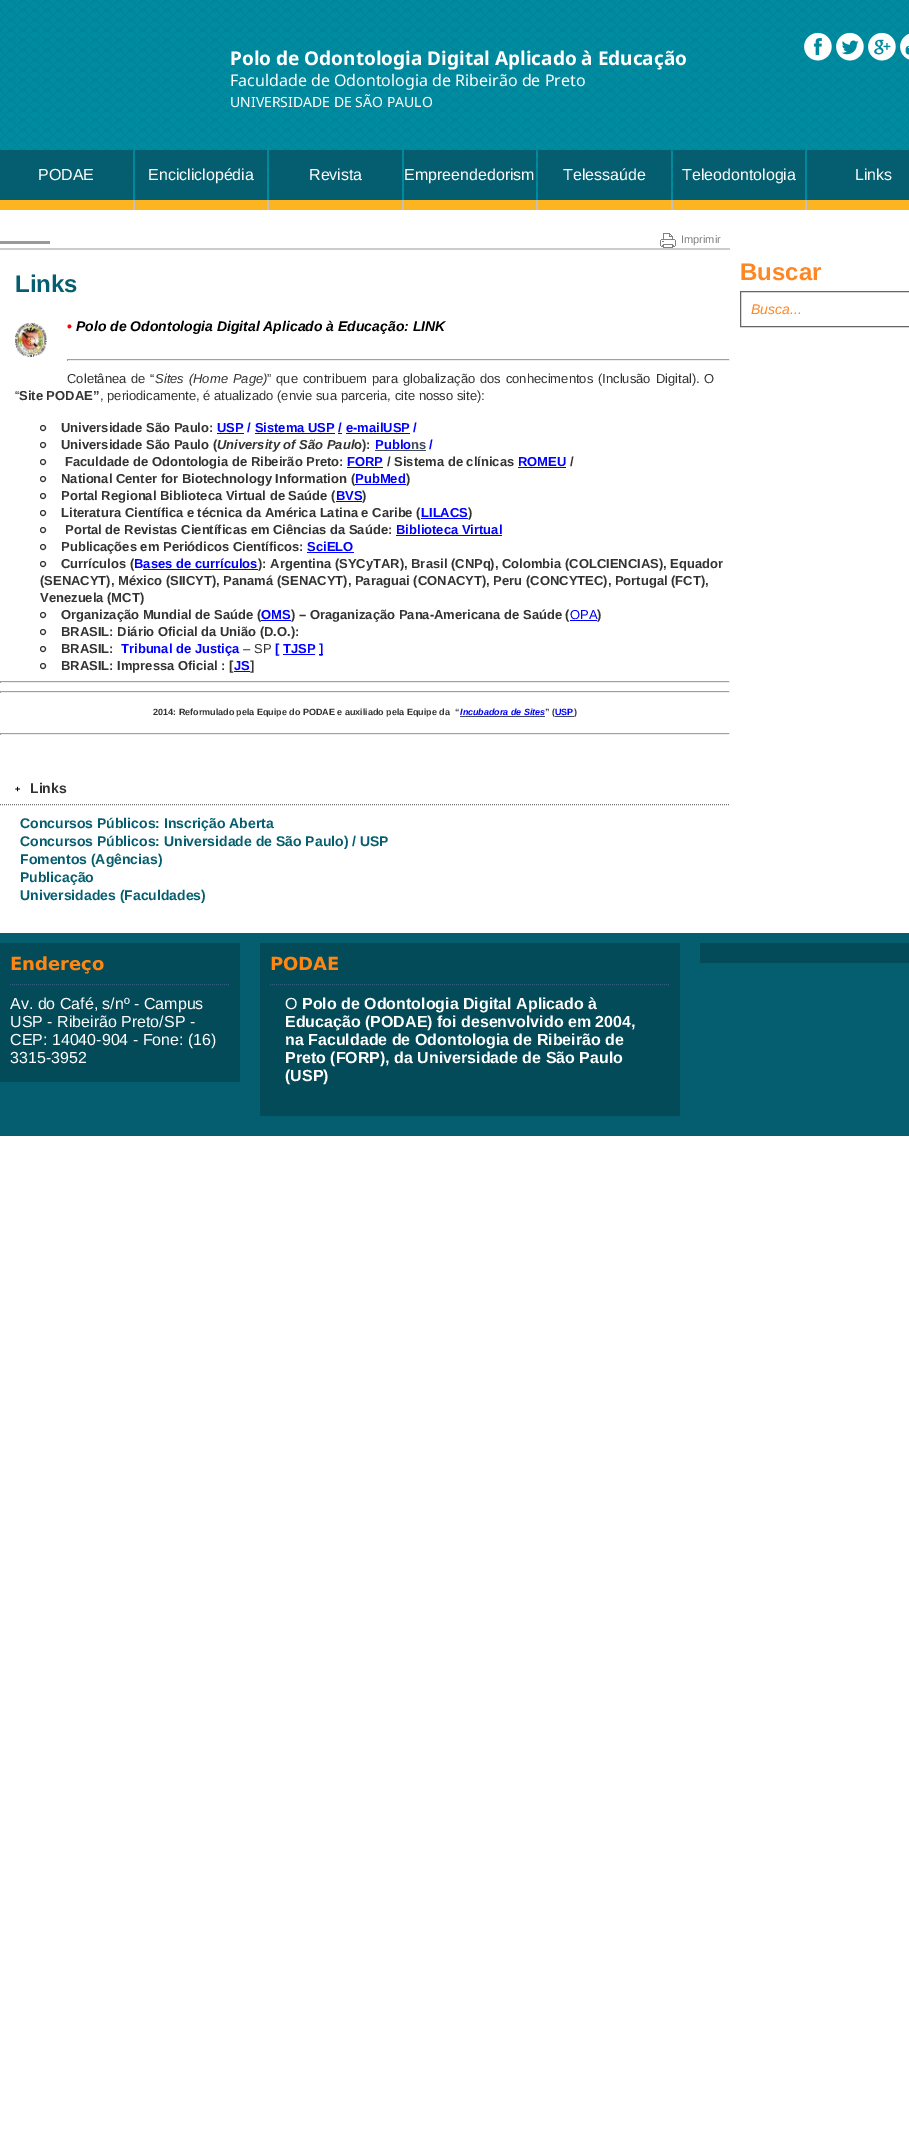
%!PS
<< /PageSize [909 2139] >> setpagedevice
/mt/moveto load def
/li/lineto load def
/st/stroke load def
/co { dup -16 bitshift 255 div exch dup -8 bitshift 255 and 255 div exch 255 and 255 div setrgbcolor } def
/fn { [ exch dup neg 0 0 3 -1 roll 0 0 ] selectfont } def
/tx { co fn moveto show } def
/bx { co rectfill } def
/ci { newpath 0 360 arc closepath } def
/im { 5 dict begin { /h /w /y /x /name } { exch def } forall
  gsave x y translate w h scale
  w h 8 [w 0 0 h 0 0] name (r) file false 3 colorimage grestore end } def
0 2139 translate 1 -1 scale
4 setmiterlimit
0 0 909 2139 16#FFFFFF bx
(media/1.raw) 0 0 909 210 im
(media/2.raw) 804 32 28 29 im
(media/3.raw) 836 32 28 29 im
(media/4.raw) 868 32 28 29 im
(media/5.raw) 900 33 9 27 im
0 150 133 50 16#055E6F bx
0 200 133 10 16#FCB421 bx
135 150 132 50 16#055E6F bx
135 200 132 10 16#FCB421 bx
269 150 133 50 16#055E6F bx
269 200 133 10 16#FCB421 bx
404 150 132 50 16#055E6F bx
404 200 132 10 16#FCB421 bx
538 150 133 50 16#055E6F bx
538 200 133 10 16#FCB421 bx
673 150 132 50 16#055E6F bx
673 200 132 10 16#FCB421 bx
807 150 102 50 16#055E6F bx
807 200 102 10 16#FCB421 bx
0 241 50 3 16#999999 bx
(media/6.raw) 660 233 16 15 im
0 248 730 2 16#CCCCCC bx
(media/7.raw) 15 323 32 34 im
67 359 663 1 16#9F9F9F bx
729 359 1 2 16#EEEEEE bx
67 360 663 1 16#EEEEEE bx
67 359 1 2 16#9F9F9F bx
16#333333 co
43 428 2.5 ci st
217 433 27 1 16#0000FF bx
255 433 80 1 16#0000FF bx
338 433 4 1 16#0000FF bx
346 433 64 1 16#0000FF bx
16#333333 co
43 445 2.5 ci st
375 450 51 1 16#414958 bx
16#333333 co
43 462 2.5 ci st
347 467 36 1 16#0000FF bx
518 467 48 1 16#0000FF bx
16#333333 co
43 479 2.5 ci st
355 484 51 1 16#0000FF bx
16#333333 co
43 496 2.5 ci st
336 501 26 1 16#0000FF bx
16#333333 co
43 513 2.5 ci st
421 518 47 1 16#0000FF bx
16#333333 co
43 530 2.5 ci st
396 535 106 1 16#0000FF bx
16#333333 co
43 547 2.5 ci st
307 552 47 1 16#0000FF bx
16#333333 co
43 564 2.5 ci st
143 569 115 1 16#0000FF bx
16#333333 co
43 615 2.5 ci st
570 620 27 1 16#0000FF bx
16#333333 co
43 632 2.5 ci st
43 649 2.5 ci st
283 654 32 1 16#0000FF bx
319 654 4 1 16#0000FF bx
16#333333 co
43 666 2.5 ci st
234 671 16 1 16#0000FF bx
0 681 730 1 16#9F9F9F bx
729 681 1 2 16#EEEEEE bx
0 682 730 1 16#EEEEEE bx
0 681 1 2 16#9F9F9F bx
0 691 730 1 16#9F9F9F bx
729 691 1 2 16#EEEEEE bx
0 692 730 1 16#EEEEEE bx
0 691 1 2 16#9F9F9F bx
460 716 85 1 16#414958 bx
0 733 730 1 16#9F9F9F bx
729 733 1 2 16#EEEEEE bx
0 734 730 1 16#EEEEEE bx
0 733 1 2 16#9F9F9F bx
16#666666 co
740.5 291.5 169 35 rectstroke
16#777777 co
[1 1] 0 setdash
0 804.5 mt 730 804.5 li st
0 933 909 203 16#055E6F bx
700 943 209 20 16#044B59 bx
0 943 240 139 16#044B59 bx
16#315C84 co
10 984.5 mt 230 984.5 li st
260 943 420 173 16#044B59 bx
16#315C84 co
270 984.5 mt 670 984.5 li st
(Polo de Odontologia Digital Aplicado à Educação) 230 65 /NotoSans-Bold 19 16#FFFFFF tx
(Faculdade de Odontologia de Ribeirão de Preto) 230 86 /NotoSans-Regular 16 16#FFFFFF tx
(UNIVERSIDADE DE SÃO PAULO) 230 107 /NotoSans-Regular 14 16#FFFFFF tx
(PODAE) 38 180 /LiberationSans-Regular 16 16#FFFFFF tx
(Encicliclopédia) 148 180 /LiberationSans-Regular 16 16#FFFFFF tx
(Revista) 309 180 /LiberationSans-Regular 16 16#FFFFFF tx
(Empreendedorism) 404 180 /LiberationSans-Regular 16 16#FFFFFF tx
(Telessaúde) 563 180 /LiberationSans-Regular 16 16#FFFFFF tx
(Teleodontologia) 682 180 /LiberationSans-Regular 16 16#FFFFFF tx
(Links) 855 180 /LiberationSans-Regular 16 16#FFFFFF tx
(Imprimir) 681 243 /LiberationSans-Regular 11 16#808080 tx
(Links) 15 292 /LiberationSans-Bold 24 16#055E6F tx
(•) 67 331 /LiberationSans-Bold 14 16#FF0000 tx
(Polo de Odontologia Digital Aplicado à Educação: LINK) 76 331 /LiberationSans-BoldItalic 14 16#000000 tx
/LiberationSans-Regular 13 fn
16#333333 co
67 383 mt 1.25 0 32 (Coletânea de “) widthshow
/LiberationSans-Italic 13 fn
155 383 mt 1.25 0 32 (Sites \(Home Page\)) widthshow
/LiberationSans-Regular 13 fn
267 383 mt 1.25 0 32 (” que contribuem para globalização dos conhecimentos \(Inclusão Digital\). O) widthshow
(“) 15 400 /LiberationSans-Regular 13 16#333333 tx
(Site PODAE”) 19 400 /LiberationSans-Bold 13 16#333333 tx
(, periodicamente, é atualizado \(envie sua parceria, cite nosso site\):) 100 400 /LiberationSans-Regular 13 16#333333 tx
(Universidade São Paulo:) 61 432 /LiberationSans-Bold 13 16#333333 tx
(USP / Sistema USP / e-mailUSP /) 217 432 /LiberationSans-Bold 13 16#0000FF tx
(Universidade São Paulo \() 61 449 /LiberationSans-Bold 13 16#333333 tx
(University of São Paul) 217 449 /LiberationSans-BoldItalic 13 16#333333 tx
(o\):) 354 449 /LiberationSans-Bold 13 16#333333 tx
(Publo) 375 449 /LiberationSans-Bold 13 16#0000FF tx
(ns) 411 449 /LiberationSans-Bold 13 16#414958 tx
(/) 429 449 /LiberationSans-Bold 13 16#0000FF tx
(Faculdade de Odontologia de Ribeirão Preto:) 65 466 /LiberationSans-Bold 13 16#333333 tx
(FORP) 347 466 /LiberationSans-Bold 13 16#0000FF tx
(/ Sistema de clínicas) 387 466 /LiberationSans-Bold 13 16#333333 tx
(ROMEU) 518 466 /LiberationSans-Bold 13 16#0000FF tx
(/) 570 466 /LiberationSans-Bold 13 16#333333 tx
(National Center for Biotechnology Information \() 61 483 /LiberationSans-Bold 13 16#333333 tx
(PubMed) 355 483 /LiberationSans-Bold 13 16#0000FF tx
(\)) 406 483 /LiberationSans-Bold 13 16#333333 tx
(Portal Regional Biblioteca Virtual de Saúde \() 61 500 /LiberationSans-Bold 13 16#333333 tx
(BVS) 336 500 /LiberationSans-Bold 13 16#0000FF tx
(\)) 362 500 /LiberationSans-Bold 13 16#333333 tx
(Literatura Científica e técnica da América Latina e Caribe \() 61 517 /LiberationSans-Bold 13 16#333333 tx
(LILACS) 421 517 /LiberationSans-Bold 13 16#0000FF tx
(\)) 468 517 /LiberationSans-Bold 13 16#333333 tx
(Portal de Revistas Científicas em Ciências da Saúde:) 65 534 /LiberationSans-Bold 13 16#333333 tx
(Biblioteca Virtual) 396 534 /LiberationSans-Bold 13 16#0000FF tx
(Publicações em Periódicos Científicos:) 61 551 /LiberationSans-Bold 13 16#333333 tx
(SciELO) 307 551 /LiberationSans-Bold 13 16#0000FF tx
(Currículos \() 61 568 /LiberationSans-Bold 13 16#333333 tx
(Bases de currículos) 134 568 /LiberationSans-Bold 13 16#0000FF tx
(\): Argentina \(SYCyTAR\), Brasil \(CNPq\), Colombia \(COLCIENCIAS\), Equador) 258 568 /LiberationSans-Bold 13 16#333333 tx
(\(SENACYT\), México \(SIICYT\), Panamá \(SENACYT\), Paraguai \(CONACYT\), Peru \(CONCYTEC\), Portugal \(FCT\),) 40 585 /LiberationSans-Bold 13 16#333333 tx
(Venezuela \(MCT\)) 40 602 /LiberationSans-Bold 13 16#333333 tx
(Organização Mundial de Saúde \() 61 619 /LiberationSans-Bold 13 16#333333 tx
261 620 30 1 16#0000FF bx
(OMS) 261 619 /LiberationSans-Bold 13 16#0000FF tx
(\) – Oraganização Pana-Americana de Saúde \() 291 619 /LiberationSans-Bold 13 16#333333 tx
(OPA) 570 619 /LiberationSans-Regular 13 16#0000FF tx
(\)) 597 619 /LiberationSans-Bold 13 16#333333 tx
(BRASIL: Diário Oficial da União \(D.O.\):) 61 636 /LiberationSans-Bold 13 16#333333 tx
(BRASIL:) 61 653 /LiberationSans-Bold 13 16#333333 tx
(Tribunal de Justiça) 121 653 /LiberationSans-Bold 13 16#0000FF tx
(– SP) 243 653 /LiberationSans-Regular 13 16#333333 tx
([ TJSP) 275 653 /LiberationSans-Bold 13 16#0000FF tx
(]) 319 653 /LiberationSans-Bold 13 16#0000FF tx
(BRASIL: Impressa Oficial : [) 61 670 /LiberationSans-Bold 13 16#333333 tx
(JS) 234 670 /LiberationSans-Bold 13 16#0000FF tx
(]) 250 670 /LiberationSans-Bold 13 16#333333 tx
(2014: Reformulado pela Equipe do PODAE e auxiliado pela Equipe da  “) 153 715 /LiberationSans-Bold 9 16#333333 tx
(Incubadora de Sites) 460 715 /LiberationSans-BoldItalic 9 16#0000FF tx
(” \() 545 715 /LiberationSans-Bold 9 16#333333 tx
555 716 19 1 16#414958 bx
(USP) 555 715 /LiberationSans-Bold 9 16#0000FF tx
(\)) 574 715 /LiberationSans-Bold 9 16#333333 tx
(Buscar) 740 280 /LiberationSans-Bold 24 16#FD8725 tx
(Busca...) 751 314 /LiberationSans-Italic 14 16#FD8725 tx
(+) 15 792 /LiberationSans-Bold 9 16#000000 tx
(Links) 30 793 /LiberationSans-Bold 14 16#333333 tx
(Concursos Públicos: Inscrição Aberta) 20 828 /LiberationSans-Bold 14 16#055E6F tx
(Concursos Públicos: Universidade de São Paulo\) / USP) 20 846 /LiberationSans-Bold 14 16#055E6F tx
(Fomentos \(Agências\)) 20 864 /LiberationSans-Bold 14 16#055E6F tx
(Publicação) 20 882 /LiberationSans-Bold 14 16#055E6F tx
(Universidades \(Faculdades\)) 20 900 /LiberationSans-Bold 14 16#055E6F tx
(Endereço) 10 970 /DejaVuSans-Bold 18 16#FF8612 tx
(Av. do Café, s/nº - Campus) 10 1009 /LiberationSans-Regular 16 16#FFFFFF tx
(USP - Ribeirão Preto/SP -) 10 1027 /LiberationSans-Regular 16 16#FFFFFF tx
(CEP: 14040-904 - Fone: \(16\)) 10 1045 /LiberationSans-Regular 16 16#FFFFFF tx
(3315-3952) 10 1063 /LiberationSans-Regular 16 16#FFFFFF tx
(PODAE) 270 970 /DejaVuSans-Bold 18 16#FF8612 tx
(O) 285 1009 /LiberationSans-Regular 16 16#FFFFFF tx
(Polo de Odontologia Digital Aplicado à) 302 1009 /LiberationSans-Bold 16 16#FFFFFF tx
(Educação \(PODAE\) foi desenvolvido em 2004,) 285 1027 /LiberationSans-Bold 16 16#FFFFFF tx
(na Faculdade de Odontologia de Ribeirão de) 285 1045 /LiberationSans-Bold 16 16#FFFFFF tx
(Preto \(FORP\), da Universidade de São Paulo) 285 1063 /LiberationSans-Bold 16 16#FFFFFF tx
(\(USP\)) 285 1081 /LiberationSans-Bold 16 16#FFFFFF tx
showpage
